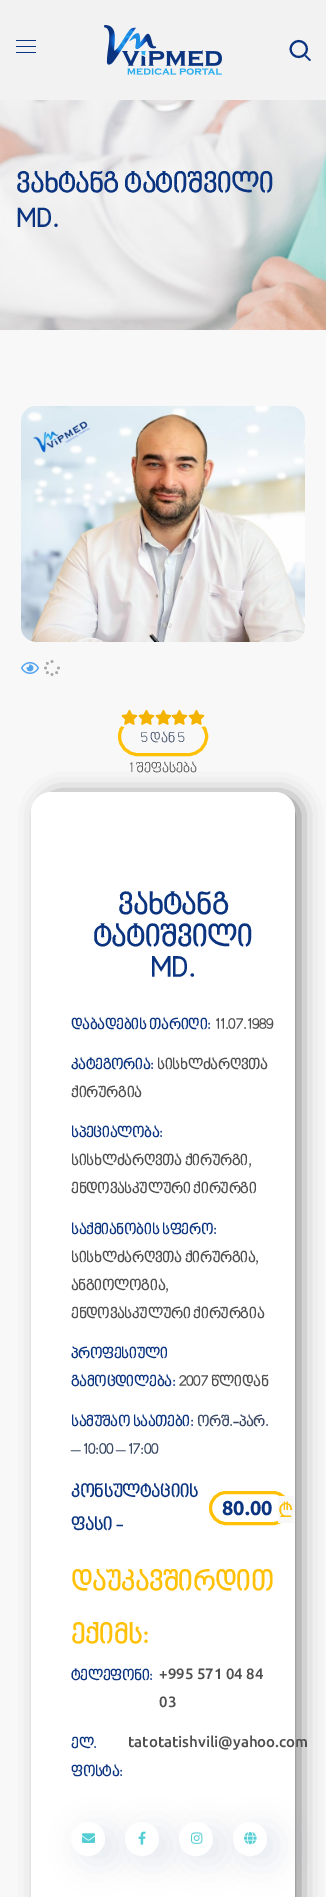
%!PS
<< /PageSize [326 1897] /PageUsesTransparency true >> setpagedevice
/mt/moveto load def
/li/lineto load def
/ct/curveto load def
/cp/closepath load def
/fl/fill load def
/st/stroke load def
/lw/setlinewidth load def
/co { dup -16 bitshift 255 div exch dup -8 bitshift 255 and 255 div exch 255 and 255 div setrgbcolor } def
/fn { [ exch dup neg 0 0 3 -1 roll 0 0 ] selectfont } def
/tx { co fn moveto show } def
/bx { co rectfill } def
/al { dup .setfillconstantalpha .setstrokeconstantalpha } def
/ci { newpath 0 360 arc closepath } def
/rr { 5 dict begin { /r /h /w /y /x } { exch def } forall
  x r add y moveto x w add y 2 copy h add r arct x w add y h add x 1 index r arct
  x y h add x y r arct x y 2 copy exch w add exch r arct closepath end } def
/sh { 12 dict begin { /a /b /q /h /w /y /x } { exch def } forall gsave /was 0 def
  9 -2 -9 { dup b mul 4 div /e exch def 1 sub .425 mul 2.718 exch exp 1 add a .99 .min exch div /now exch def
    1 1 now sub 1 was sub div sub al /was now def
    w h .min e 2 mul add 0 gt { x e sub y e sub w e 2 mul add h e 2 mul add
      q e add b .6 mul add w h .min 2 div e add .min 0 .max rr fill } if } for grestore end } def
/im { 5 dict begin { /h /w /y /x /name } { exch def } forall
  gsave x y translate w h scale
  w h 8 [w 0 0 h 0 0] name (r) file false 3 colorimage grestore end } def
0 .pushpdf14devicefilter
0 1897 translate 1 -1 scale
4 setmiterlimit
0 0 326 1897 16#F8F8F8 bx
0 0 326 100 16#F2F2F2 bx
16 40 20 1 16#0A3380 bx
16 46 20 1 16#0A3380 bx
16 52 20 1 16#0A3380 bx
(media/1.raw) 104 25 118 50 im
2 lw
304.5 43.5 mt 312 51 300.5 62 293 54.5 ct 285.5 47 297 36 304.5 43.5 ct cp st
304.5 56 mt 306 55 li 311 60 li 309.5 61 li cp fl
(media/2.raw) 0 100 326 230 im
(media/3.raw) 21 406 284 236 im
(media/4.raw) 21 662 18 12 im
(media/5.raw) 44 660 16 16 im
16#FFC107 co
3 lw
119.5 718.5 87 36 18 rr st
16#F8F8F8 co
116 708 94 19 9.5 rr fl
(media/6.raw) 121 709 17 16 im
(media/6.raw) 138 709 17 16 im
(media/6.raw) 155 709 17 16 im
(media/7.raw) 171 709 17 16 im
(media/6.raw) 188 709 17 16 im
16#000000 co
43 796 256 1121 16 11 .5 sh
16#FFFFFF co
31 792 264 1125 20 rr fl
16#FFC107 co
210.5 1492.5 78 31 15.5 rr st
278 1496 16 27 16#F8F8F8 bx
16#002A6A co
81 1829 34 34 17 15 .1 sh
16#FFFFFF co
88 1839 17 ci fl
(media/8.raw) 82 1833 13 10 im
16#002A6A co
135 1829 34 34 17 15 .1 sh
16#FFFFFF co
142 1839 17 ci fl
(media/9.raw) 138 1831 8 14 im
16#002A6A co
189 1829 34 34 17 15 .1 sh
16#FFFFFF co
196 1839 17 ci fl
(media/10.raw) 191 1832 12 12 im
16#002A6A co
243 1829 34 34 17 15 .1 sh
16#FFFFFF co
250 1839 17 ci fl
(media/11.raw) 244 1831 13 14 im
(ვახტანგ ტატიშვილი) 16 194 /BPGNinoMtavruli-Bold 28 16#0A3380 tx
(MD.) 16 229 /BPGNinoMtavruli-Bold 28 16#0A3380 tx
(5 დან 5) 141 743 /BPGNinoMtavruli-Regular 14 16#3B4964 tx
(1 შეფასება) 129 773 /BPGNinoMtavruli-Regular 14 16#4F4F4F tx
(ვახტანგ) 118 916 /BPGNinoMtavruli-Bold 30 16#0A3380 tx
(ტატიშვილი) 93 948 /BPGNinoMtavruli-Bold 30 16#0A3380 tx
(MD.) 150 979 /BPGNinoMtavruli-Bold 30 16#0A3380 tx
(დაბადების თარიღი:) 71 1030 /BPGNinoMtavruli-Bold 15 16#0A3380 tx
(11.07.1989) 215 1030 /BPGNinoMtavruli-Bold 15 16#4F4F4F tx
(კატეგორია:) 71 1070 /BPGNinoMtavruli-Bold 15 16#0A3380 tx
(სისხლძარღვთა) 157 1070 /BPGNinoMtavruli-Bold 15 16#4F4F4F tx
(ქირურგია) 71 1098 /BPGNinoMtavruli-Bold 15 16#4F4F4F tx
(სპეციალობა:) 71 1138 /BPGNinoMtavruli-Bold 15 16#0A3380 tx
(სისხლძარღვთა ქირურგი,) 71 1166 /BPGNinoMtavruli-Bold 15 16#4F4F4F tx
(ენდოვასკულური ქირურგი) 71 1194 /BPGNinoMtavruli-Bold 15 16#4F4F4F tx
(საქმიანობის სფერო:) 71 1235 /BPGNinoMtavruli-Bold 15 16#0A3380 tx
(სისხლძარღვთა ქირურგია,) 71 1263 /BPGNinoMtavruli-Bold 15 16#4F4F4F tx
(ანგიოლოგია,) 71 1291 /BPGNinoMtavruli-Bold 15 16#4F4F4F tx
(ენდოვასკულური ქირურგია) 71 1319 /BPGNinoMtavruli-Bold 15 16#4F4F4F tx
(პროფესიული) 71 1359 /BPGNinoMtavruli-Bold 15 16#0A3380 tx
(გამოცდილება:) 71 1387 /BPGNinoMtavruli-Bold 15 16#0A3380 tx
(2007 წლიდან) 179 1387 /BPGNinoMtavruli-Bold 15 16#4F4F4F tx
(სამუშაო საათები:) 71 1427 /BPGNinoMtavruli-Bold 15 16#0A3380 tx
(ორშ.-პარ.) 197 1427 /BPGNinoMtavruli-Bold 15 16#3B4964 tx
(– 10:00 – 17:00) 71 1455 /BPGNinoMtavruli-Bold 15 16#3B4964 tx
(კონსულტაციის) 71 1498 /BPGNinoMtavruli-Bold 18 16#0A3380 tx
(ფასი -) 71 1531 /BPGNinoMtavruli-Bold 18 16#0A3380 tx
(80.00) 222 1515 /Ubuntu-Bold 20 16#0A3380 tx
(₾) 278 1517 /NotoSans-Regular 20 16#FFC107 tx
(დაუკავშირდით) 71 1592 /BPGNinoMtavruli-Bold 28 16#FFC107 tx
(ექიმს:) 71 1645 /BPGNinoMtavruli-Bold 28 16#FFC107 tx
(ტელეფონი:) 71 1681 /BPGNinoMtavruli-Bold 15 16#0A3380 tx
(+995 571 04 84) 159 1679 /Ubuntu-Medium 15 16#4F4F4F tx
(03) 159 1707 /Ubuntu-Medium 15 16#4F4F4F tx
(ელ.) 71 1749 /BPGNinoMtavruli-Bold 15 16#0A3380 tx
(ფოსტა:) 71 1777 /BPGNinoMtavruli-Bold 15 16#0A3380 tx
(tatotatishvili@yahoo.com) 128 1747 /Ubuntu-Medium 15 16#4F4F4F tx
.poppdf14devicefilter showpage
